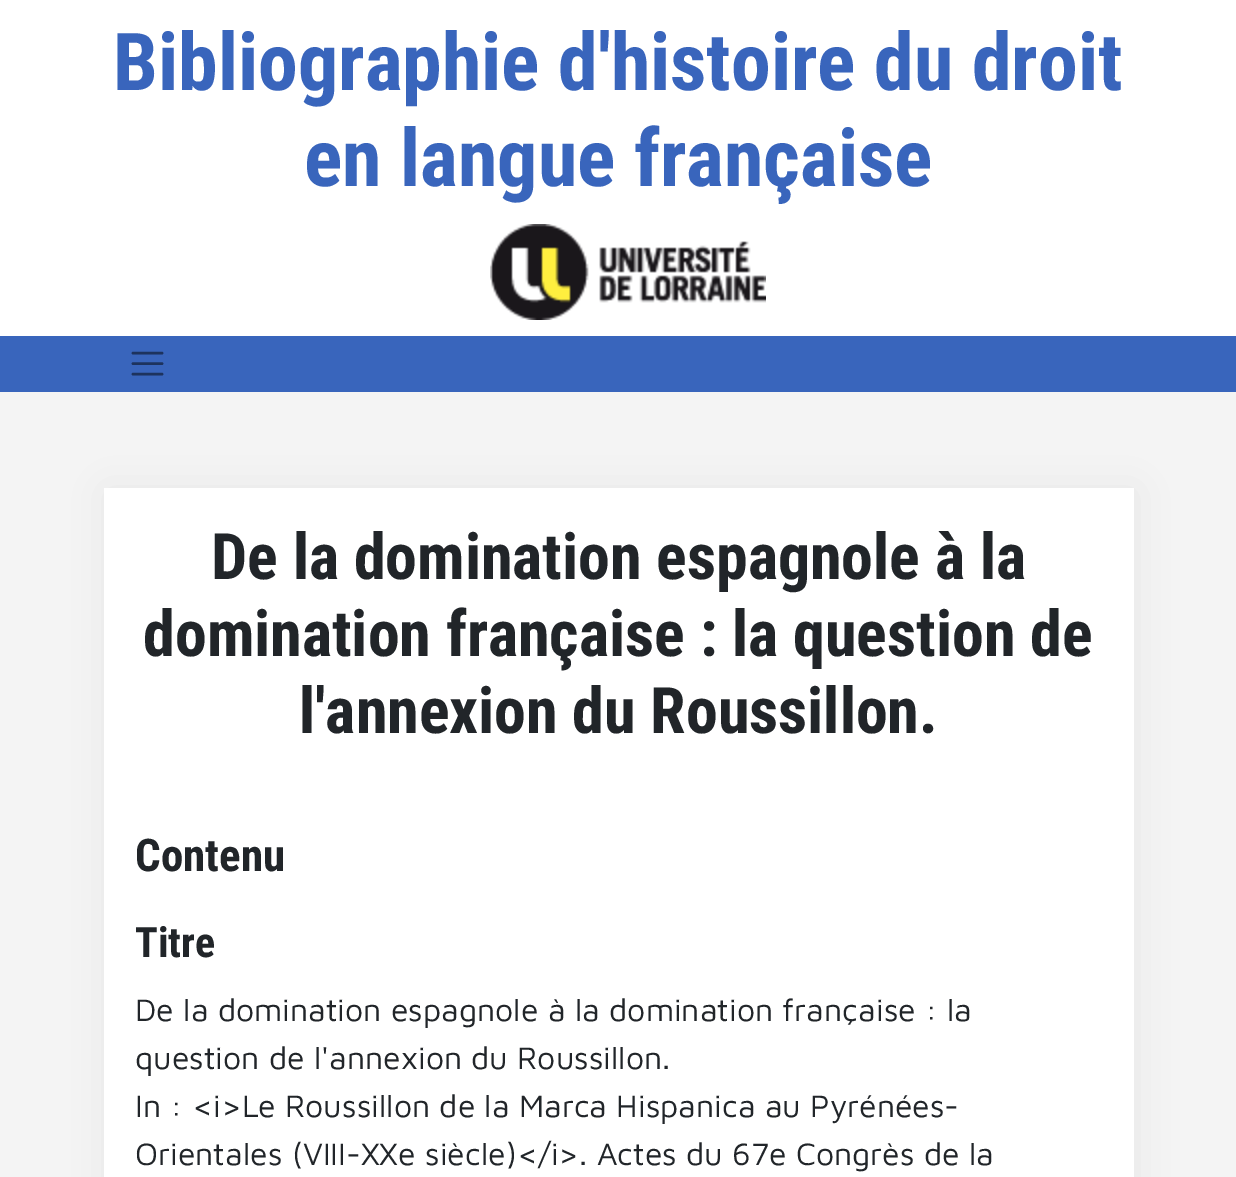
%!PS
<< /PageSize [1236 1177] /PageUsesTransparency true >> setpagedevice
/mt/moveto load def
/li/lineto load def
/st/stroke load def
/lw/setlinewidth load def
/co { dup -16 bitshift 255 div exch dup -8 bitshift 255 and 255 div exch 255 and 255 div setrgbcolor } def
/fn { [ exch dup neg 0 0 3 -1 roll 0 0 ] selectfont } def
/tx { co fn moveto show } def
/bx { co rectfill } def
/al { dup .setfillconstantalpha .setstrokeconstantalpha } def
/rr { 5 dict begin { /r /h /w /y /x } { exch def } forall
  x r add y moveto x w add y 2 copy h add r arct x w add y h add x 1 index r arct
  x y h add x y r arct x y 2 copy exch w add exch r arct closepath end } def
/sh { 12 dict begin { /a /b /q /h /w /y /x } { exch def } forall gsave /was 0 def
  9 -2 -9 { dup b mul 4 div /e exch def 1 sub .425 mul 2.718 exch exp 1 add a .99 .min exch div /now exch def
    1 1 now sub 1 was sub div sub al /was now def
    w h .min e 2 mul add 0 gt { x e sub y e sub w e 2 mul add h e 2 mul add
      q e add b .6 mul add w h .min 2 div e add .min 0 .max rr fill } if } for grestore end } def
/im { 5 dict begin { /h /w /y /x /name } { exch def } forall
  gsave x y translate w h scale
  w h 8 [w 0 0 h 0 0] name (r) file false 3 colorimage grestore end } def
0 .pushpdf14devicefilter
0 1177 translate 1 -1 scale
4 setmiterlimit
0 0 1236 1177 16#F4F4F4 bx
0 0 1236 336 16#FFFFFF bx
(media/1.raw) 490 224 276 96 im
0 336 1236 56 16#3965BC bx
16#1D335E co
2.6 lw
1 setlinecap
133 353 mt 162 353 li 133 363.5 mt 162 363.5 li 133 374 mt 162 374 li st
16#A2A2A2 co
106 490 1030 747 0 20 .17 sh
104 488 1030 689 16#FFFFFF bx
(Bibliographie d'histoire du droit) 113 90 /RobotoCondensed-Bold 80 16#3965BC tx
(en langue française) 304 186 /RobotoCondensed-Bold 80 16#3965BC tx
(De la domination espagnole à la) 211 579 /RobotoCondensed-Bold 64 16#212529 tx
(domination française : la question de) 143 656 /RobotoCondensed-Bold 64 16#212529 tx
(l'annexion du Roussillon.) 299 733 /RobotoCondensed-Bold 64 16#212529 tx
(Contenu) 135 871 /RobotoCondensed-Bold 45 16#212529 tx
(Titre) 135 957 /RobotoCondensed-Bold 42 16#212529 tx
(De la domination espagnole à la domination française : la) 135 1021 /MavenPro-Regular 32 16#212529 tx
(question de l'annexion du Roussillon.) 135 1069 /MavenPro-Regular 32 16#212529 tx
(In : <i>Le Roussillon de la Marca Hispanica au Pyrénées-) 135 1117 /MavenPro-Regular 32 16#212529 tx
(Orientales \(VIII-XXe siècle\)</i>. Actes du 67e Congrès de la) 135 1165 /MavenPro-Regular 32 16#212529 tx
.poppdf14devicefilter showpage
